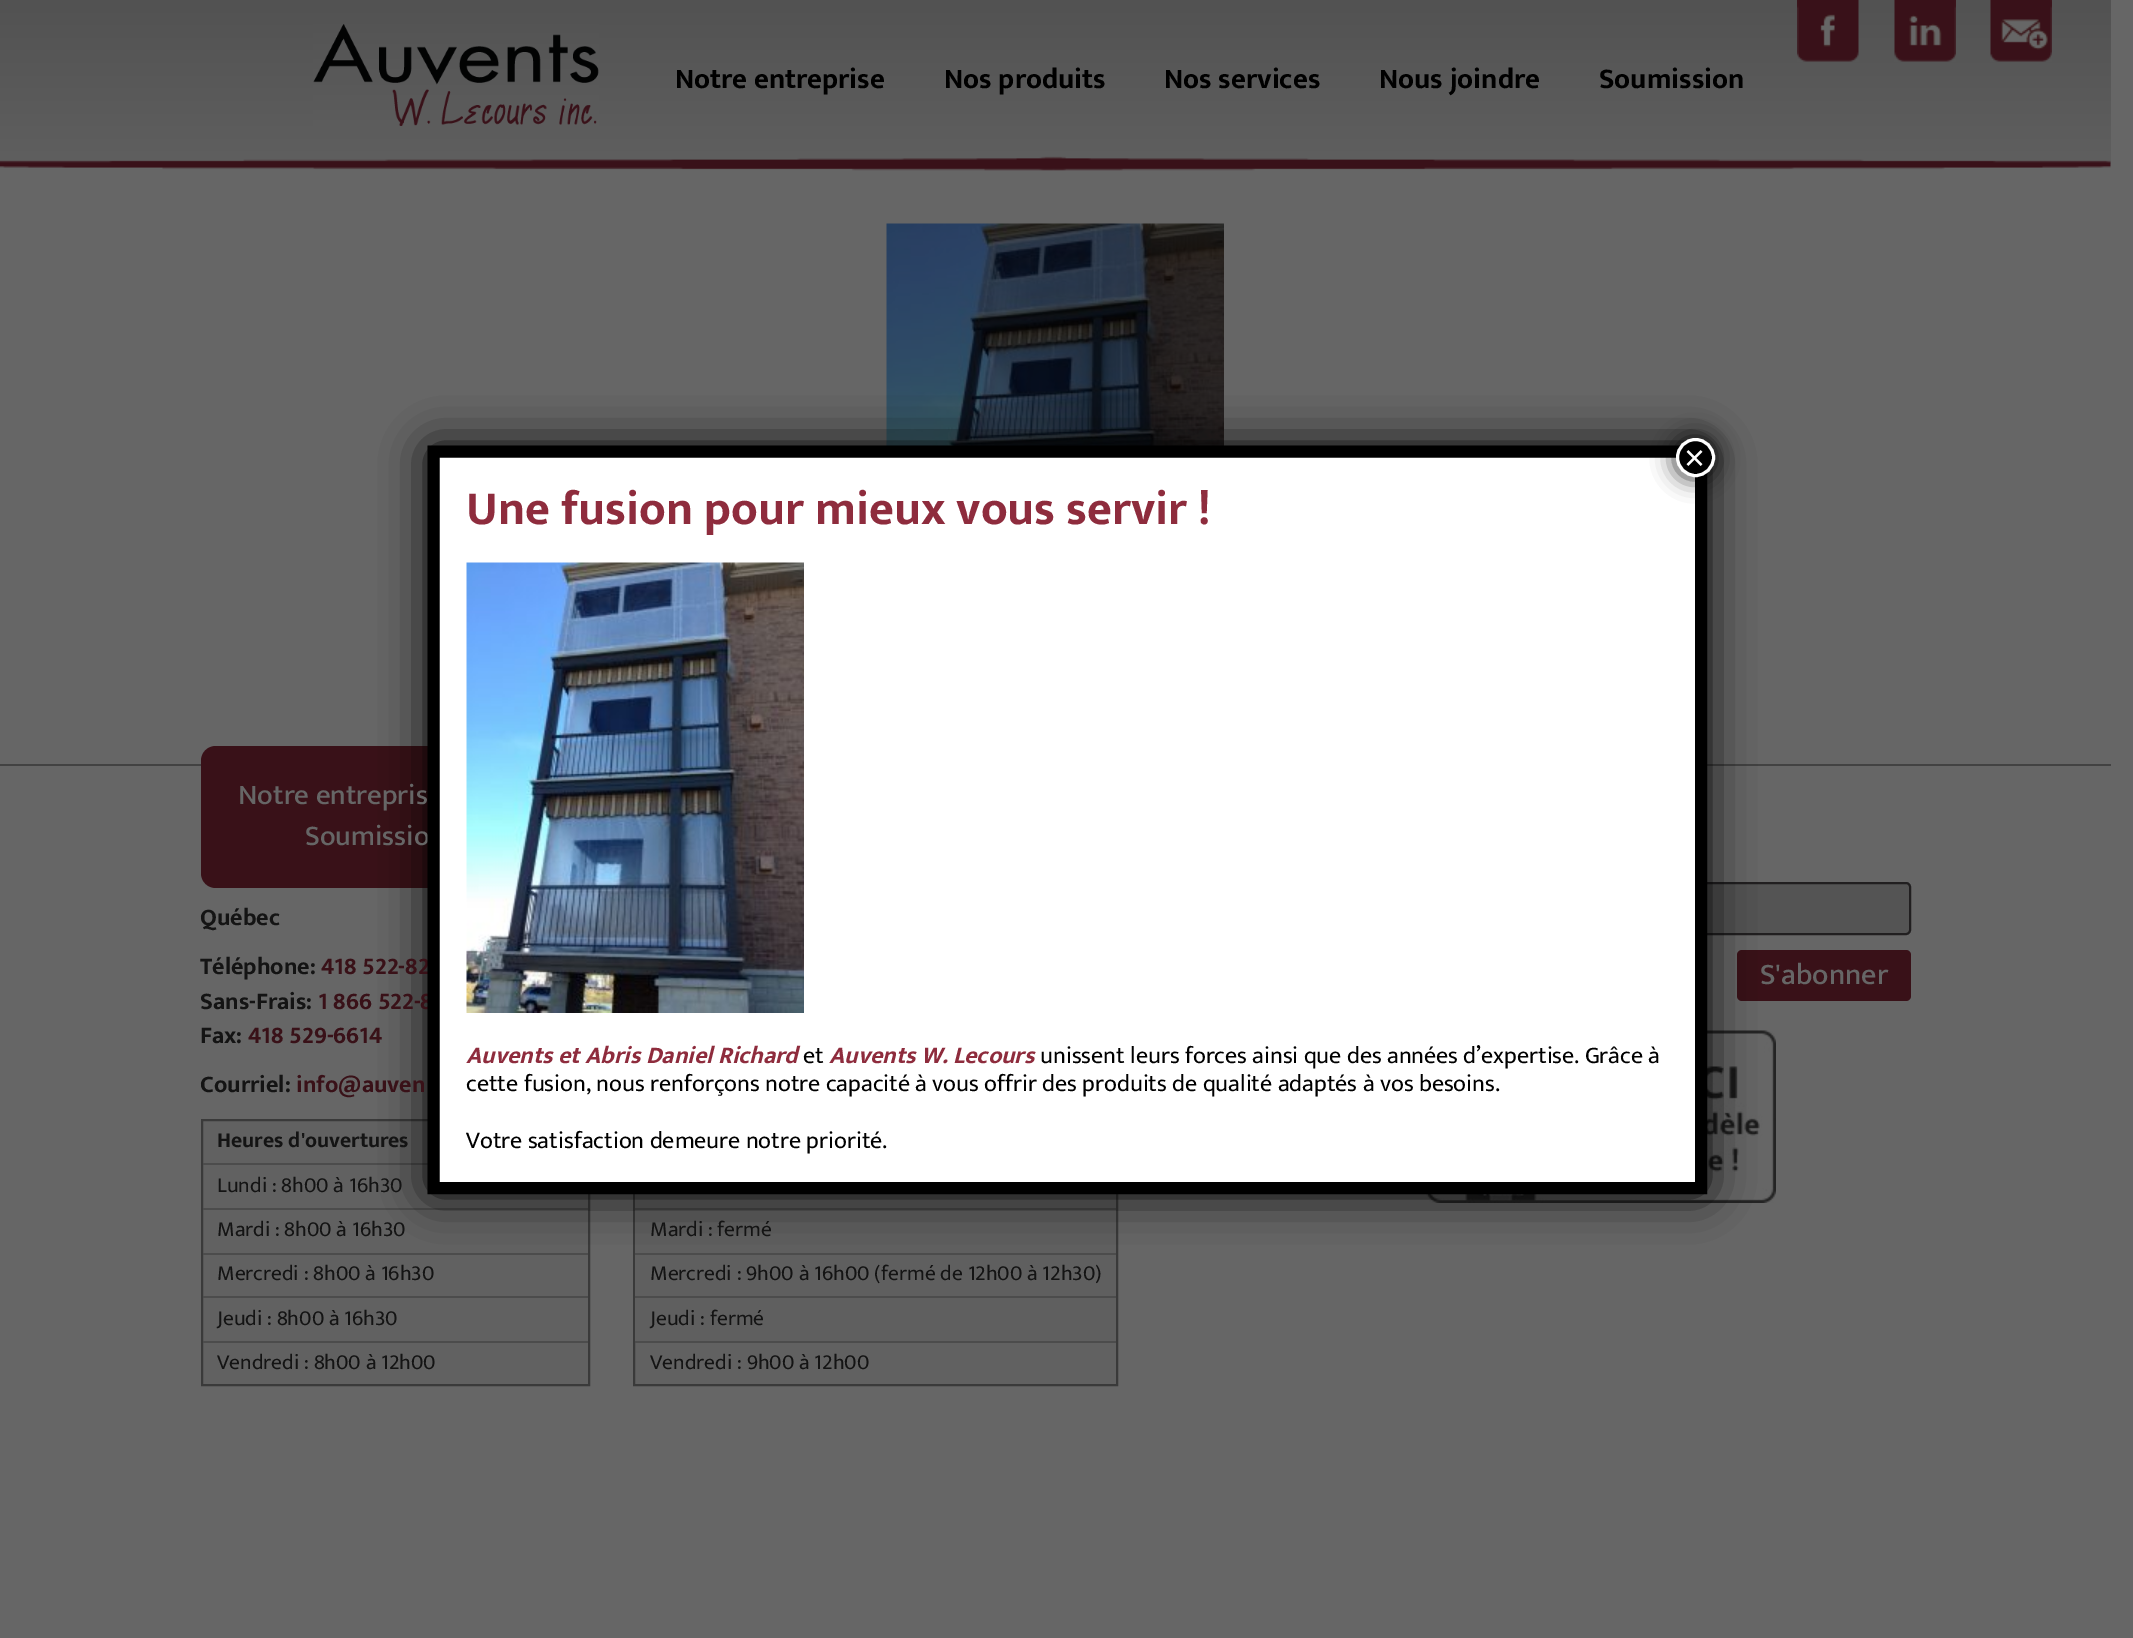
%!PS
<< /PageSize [2133 1638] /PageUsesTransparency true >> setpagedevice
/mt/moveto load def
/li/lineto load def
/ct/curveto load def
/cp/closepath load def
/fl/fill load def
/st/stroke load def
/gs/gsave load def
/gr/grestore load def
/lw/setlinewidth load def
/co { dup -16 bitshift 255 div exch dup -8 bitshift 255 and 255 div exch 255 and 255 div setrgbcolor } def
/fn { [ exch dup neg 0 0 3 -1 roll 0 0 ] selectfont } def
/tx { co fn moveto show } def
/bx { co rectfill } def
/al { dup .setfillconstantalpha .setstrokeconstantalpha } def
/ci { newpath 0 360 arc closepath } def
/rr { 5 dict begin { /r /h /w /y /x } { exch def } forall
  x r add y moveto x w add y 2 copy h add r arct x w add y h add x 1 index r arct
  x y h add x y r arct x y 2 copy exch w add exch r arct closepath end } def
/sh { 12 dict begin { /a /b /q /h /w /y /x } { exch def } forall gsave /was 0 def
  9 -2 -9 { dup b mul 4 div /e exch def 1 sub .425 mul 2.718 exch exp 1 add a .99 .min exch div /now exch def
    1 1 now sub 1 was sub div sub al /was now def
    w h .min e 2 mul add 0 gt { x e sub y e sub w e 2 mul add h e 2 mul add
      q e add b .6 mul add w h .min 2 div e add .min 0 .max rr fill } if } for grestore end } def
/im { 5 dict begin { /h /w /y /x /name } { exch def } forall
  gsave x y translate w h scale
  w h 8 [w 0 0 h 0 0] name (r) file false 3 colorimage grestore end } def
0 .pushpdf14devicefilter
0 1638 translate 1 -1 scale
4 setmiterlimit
0 0 2133 1638 16#666666 bx
gs 0 0 mt 2111 0 li 2111 164 li 0 164 li cp clip newpath
<< /ShadingType 2 /ColorSpace /DeviceRGB /Coords [1055 0 1055 164] /Extend [true true] /Function << /FunctionType 2 /Domain [0 1] /C0 [.322 .322 .322] /C1 [.373 .373 .373] /N 1 >> >> shfill gr
(media/1.raw) 313 24 286 102 im
(media/2.raw) 1797 0 62 62 im
(media/3.raw) 1894 0 62 62 im
(media/4.raw) 1990 0 62 62 im
(media/5.raw) 0 156 2111 15 im
(media/6.raw) 886 223 338 223 im
0 764 2111 2 16#424242 bx
16#391118 co
216 746 mt 1278 746 li 1278 873 li 1278 881.5 1271.5 888 1263 888 ct 216 888 li 207.5 888 201 881.5 201 873 ct 201 761 li 201 752.5 207.5 746 216 746 ct cp fl
16#616161 co
202 1120 mt 589 1120 li 589 1385 li 202 1385 li cp gs fl gr
16#3A3A3A co
2 lw
st
203 1163 225 2 16#4C4C4C bx
203 1208 385 2 16#4C4C4C bx
203 1253 385 2 16#4C4C4C bx
203 1296 385 2 16#4C4C4C bx
203 1341 385 2 16#4C4C4C bx
635 1343 481 41 16#616161 bx
16#3A3A3A co
634 1120 483 265 rectstroke
635 1194 481 14 16#5F5F5F bx
635 1210 481 43 16#5F5F5F bx
635 1208 481 2 16#4C4C4C bx
635 1255 481 41 16#5F5F5F bx
635 1253 481 2 16#4C4C4C bx
635 1298 481 43 16#5F5F5F bx
635 1296 481 2 16#4C4C4C bx
635 1341 481 2 16#4C4C4C bx
16#545454 co
1294 883 616 51 4 rr gs fl gr
16#211F20 co
st
16#391118 co
1737 950 174 51 5 rr fl
(media/7.raw) 1426 1030 350 173 im
16#020202 co
428 446 1279 748 5 22.5 1 sh
439 457 1256 725 16#FFFFFF bx
(Notre entreprise) 675 88 /EkMukta-Bold 28.75 16#000000 tx
(Nos produits) 944 88 /EkMukta-Bold 28.75 16#000000 tx
(Nos services) 1164 88 /EkMukta-Bold 28.75 16#000000 tx
(Nous joindre) 1379 88 /EkMukta-Bold 28.75 16#000000 tx
(Soumission) 1599 88 /EkMukta-Bold 28.75 16#000000 tx
(Notre entrepris) 238 804 /EkMukta-Medium 28.75 16#666666 tx
(Soumissio) 305 845 /EkMukta-Medium 28.75 16#666666 tx
(Québec) 200 925 /EkMukta-Bold 24 16#141414 tx
(Téléphone:) 200 974 /EkMukta-Bold 24 16#141414 tx
(418 522-82) 321 974 /EkMukta-Bold 24 16#391118 tx
(Sans-Frais:) 200 1009 /EkMukta-Bold 24 16#141414 tx
(1 866 522-8) 318 1009 /EkMukta-Bold 24 16#391118 tx
(Fax:) 200 1043 /EkMukta-Bold 24 16#141414 tx
(418 529-6614) 248 1043 /EkMukta-Bold 24 16#391118 tx
(Courriel:) 200 1092 /EkMukta-Bold 24 16#141414 tx
(info@auven) 296 1092 /EkMukta-Bold 24 16#391118 tx
(Heures d'ouvertures) 217 1147 /EkMukta-Bold 21.6 16#141414 tx
(Lundi : 8h00 à 16h30) 217 1192 /EkMukta-Regular 21.6 16#141414 tx
(Mardi : 8h00 à 16h30) 217 1236 /EkMukta-Regular 21.6 16#141414 tx
(Mercredi : 8h00 à 16h30) 217 1280 /EkMukta-Regular 21.6 16#141414 tx
(Jeudi : 8h00 à 16h30) 217 1325 /EkMukta-Regular 21.6 16#141414 tx
(Vendredi : 8h00 à 12h00) 217 1369 /EkMukta-Regular 21.6 16#141414 tx
(Mardi : fermé) 650 1236 /EkMukta-Regular 21.6 16#141414 tx
(Mercredi : 9h00 à 16h00 \(fermé de 12h00 à 12h30\)) 650 1280 /EkMukta-Regular 21.6 16#141414 tx
(Jeudi : fermé) 650 1325 /EkMukta-Regular 21.6 16#141414 tx
(Vendredi : 9h00 à 12h00) 650 1369 /EkMukta-Regular 21.6 16#141414 tx
(S'abonner) 1760 984 /EkMukta-Medium 30 16#666666 tx
16#000000 co
12 lw
433.5 451.5 mt 1701 451.5 li 1701 1188 li 433.5 1188 li cp st
16#020202 co
1674 437 42 42 21 11 .75 sh
16#000000 co
1695.5 457.5 18 ci gs fl gr
16#FFFFFF co
3 lw
st
(×) 1684 470 /LiberationSans-Regular 36 16#FFFFFF tx
(Une fusion pour mieux vous servir !) 466 524 /EkMukta-Bold 48 16#8E2C3D tx
(media/8.raw) 466 562 338 451 im
(Auvents et Abris Daniel Richard) 466 1063 /EkMukta-BoldItalic 24 16#8E2C3D tx
(et) 803 1063 /EkMukta-Regular 24 16#000000 tx
(Auvents W. Lecours) 829 1063 /EkMukta-BoldItalic 24 16#8E2C3D tx
(unissent leurs forces ainsi que des années d’expertise. Grâce à) 1040 1063 /EkMukta-Regular 24 16#000000 tx
(cette fusion, nous renforçons notre capacité à vous offrir des produits de qualité adaptés à vos besoins.) 466 1091 /EkMukta-Regular 24 16#000000 tx
(Votre satisfaction demeure notre priorité.) 466 1148 /EkMukta-Regular 24 16#000000 tx
.poppdf14devicefilter showpage
